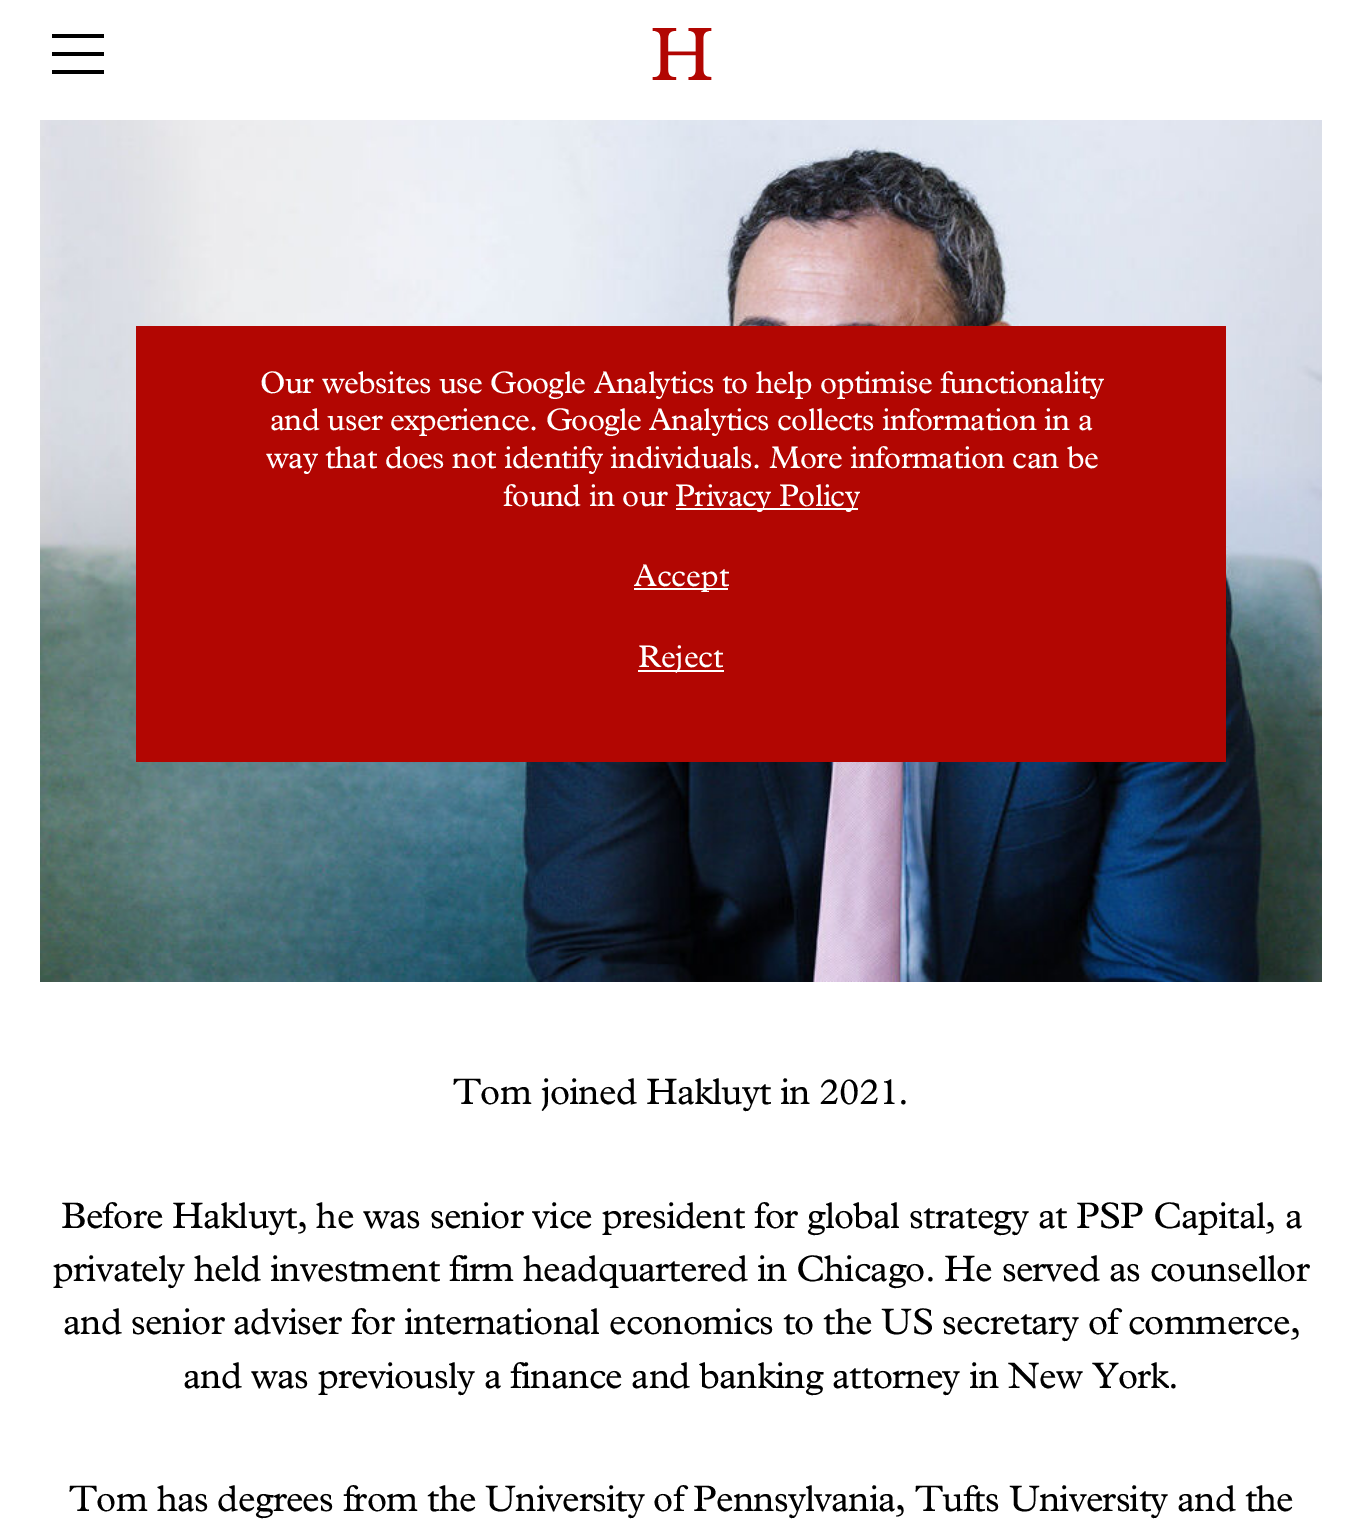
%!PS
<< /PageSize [1362 1522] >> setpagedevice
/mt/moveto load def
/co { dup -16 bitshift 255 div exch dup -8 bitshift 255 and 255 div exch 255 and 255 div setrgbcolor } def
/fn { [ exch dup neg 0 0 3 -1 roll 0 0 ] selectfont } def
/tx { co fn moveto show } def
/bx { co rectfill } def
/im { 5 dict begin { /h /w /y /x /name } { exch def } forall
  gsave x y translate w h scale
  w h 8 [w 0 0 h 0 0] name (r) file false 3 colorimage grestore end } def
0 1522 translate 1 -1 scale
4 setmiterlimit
0 0 1362 1522 16#FFFFFF bx
52 34 52 4 16#000000 bx
52 52 52 4 16#000000 bx
52 70 52 4 16#000000 bx
(media/1.raw) 652 28 60 52 im
(media/2.raw) 40 120 1282 862 im
136 326 1090 436 16#B20602 bx
676 508 182 2 16#FFFFFF bx
634 588 94 2 16#FFFFFF bx
638 670 86 2 16#FFFFFF bx
/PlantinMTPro-Regular 31.45 fn
260 393 mt -.63 0 (Our websites use Google Analytics to help optimise functionality) ashow
270 430 mt -.63 0 (and user experience. Google Analytics collects information in a) ashow
266 468 mt -.63 0 (way that does not identify individuals. More information can be) ashow
503 506 mt -.63 0 (found in our) ashow
675 506 mt -.63 0 (Privacy Policy) ashow
(Accept) 634 586 /PlantinMTPro-Regular 31.45 16#FFFFFF tx
(Reject) 638 667 /PlantinMTPro-Regular 31.45 16#FFFFFF tx
/PlantinMTPro-Regular 37.15 fn
16#000000 co
453 1104 mt -.75 0 (Tom joined Hakluyt in 2021.) ashow
61 1228 mt -.75 0 (Before Hakluyt, he was senior vice president for global strategy at PSP Capital, a) ashow
53 1281 mt -.75 0 (privately held investment firm headquartered in Chicago. He served as counsellor) ashow
63 1334 mt -.75 0 (and senior adviser for international economics to the US secretary of commerce,) ashow
183 1388 mt -.75 0 (and was previously a finance and banking attorney in New York.) ashow
69 1511 mt -.75 0 (Tom has degrees from the University of Pennsylvania, Tufts University and the) ashow
showpage
